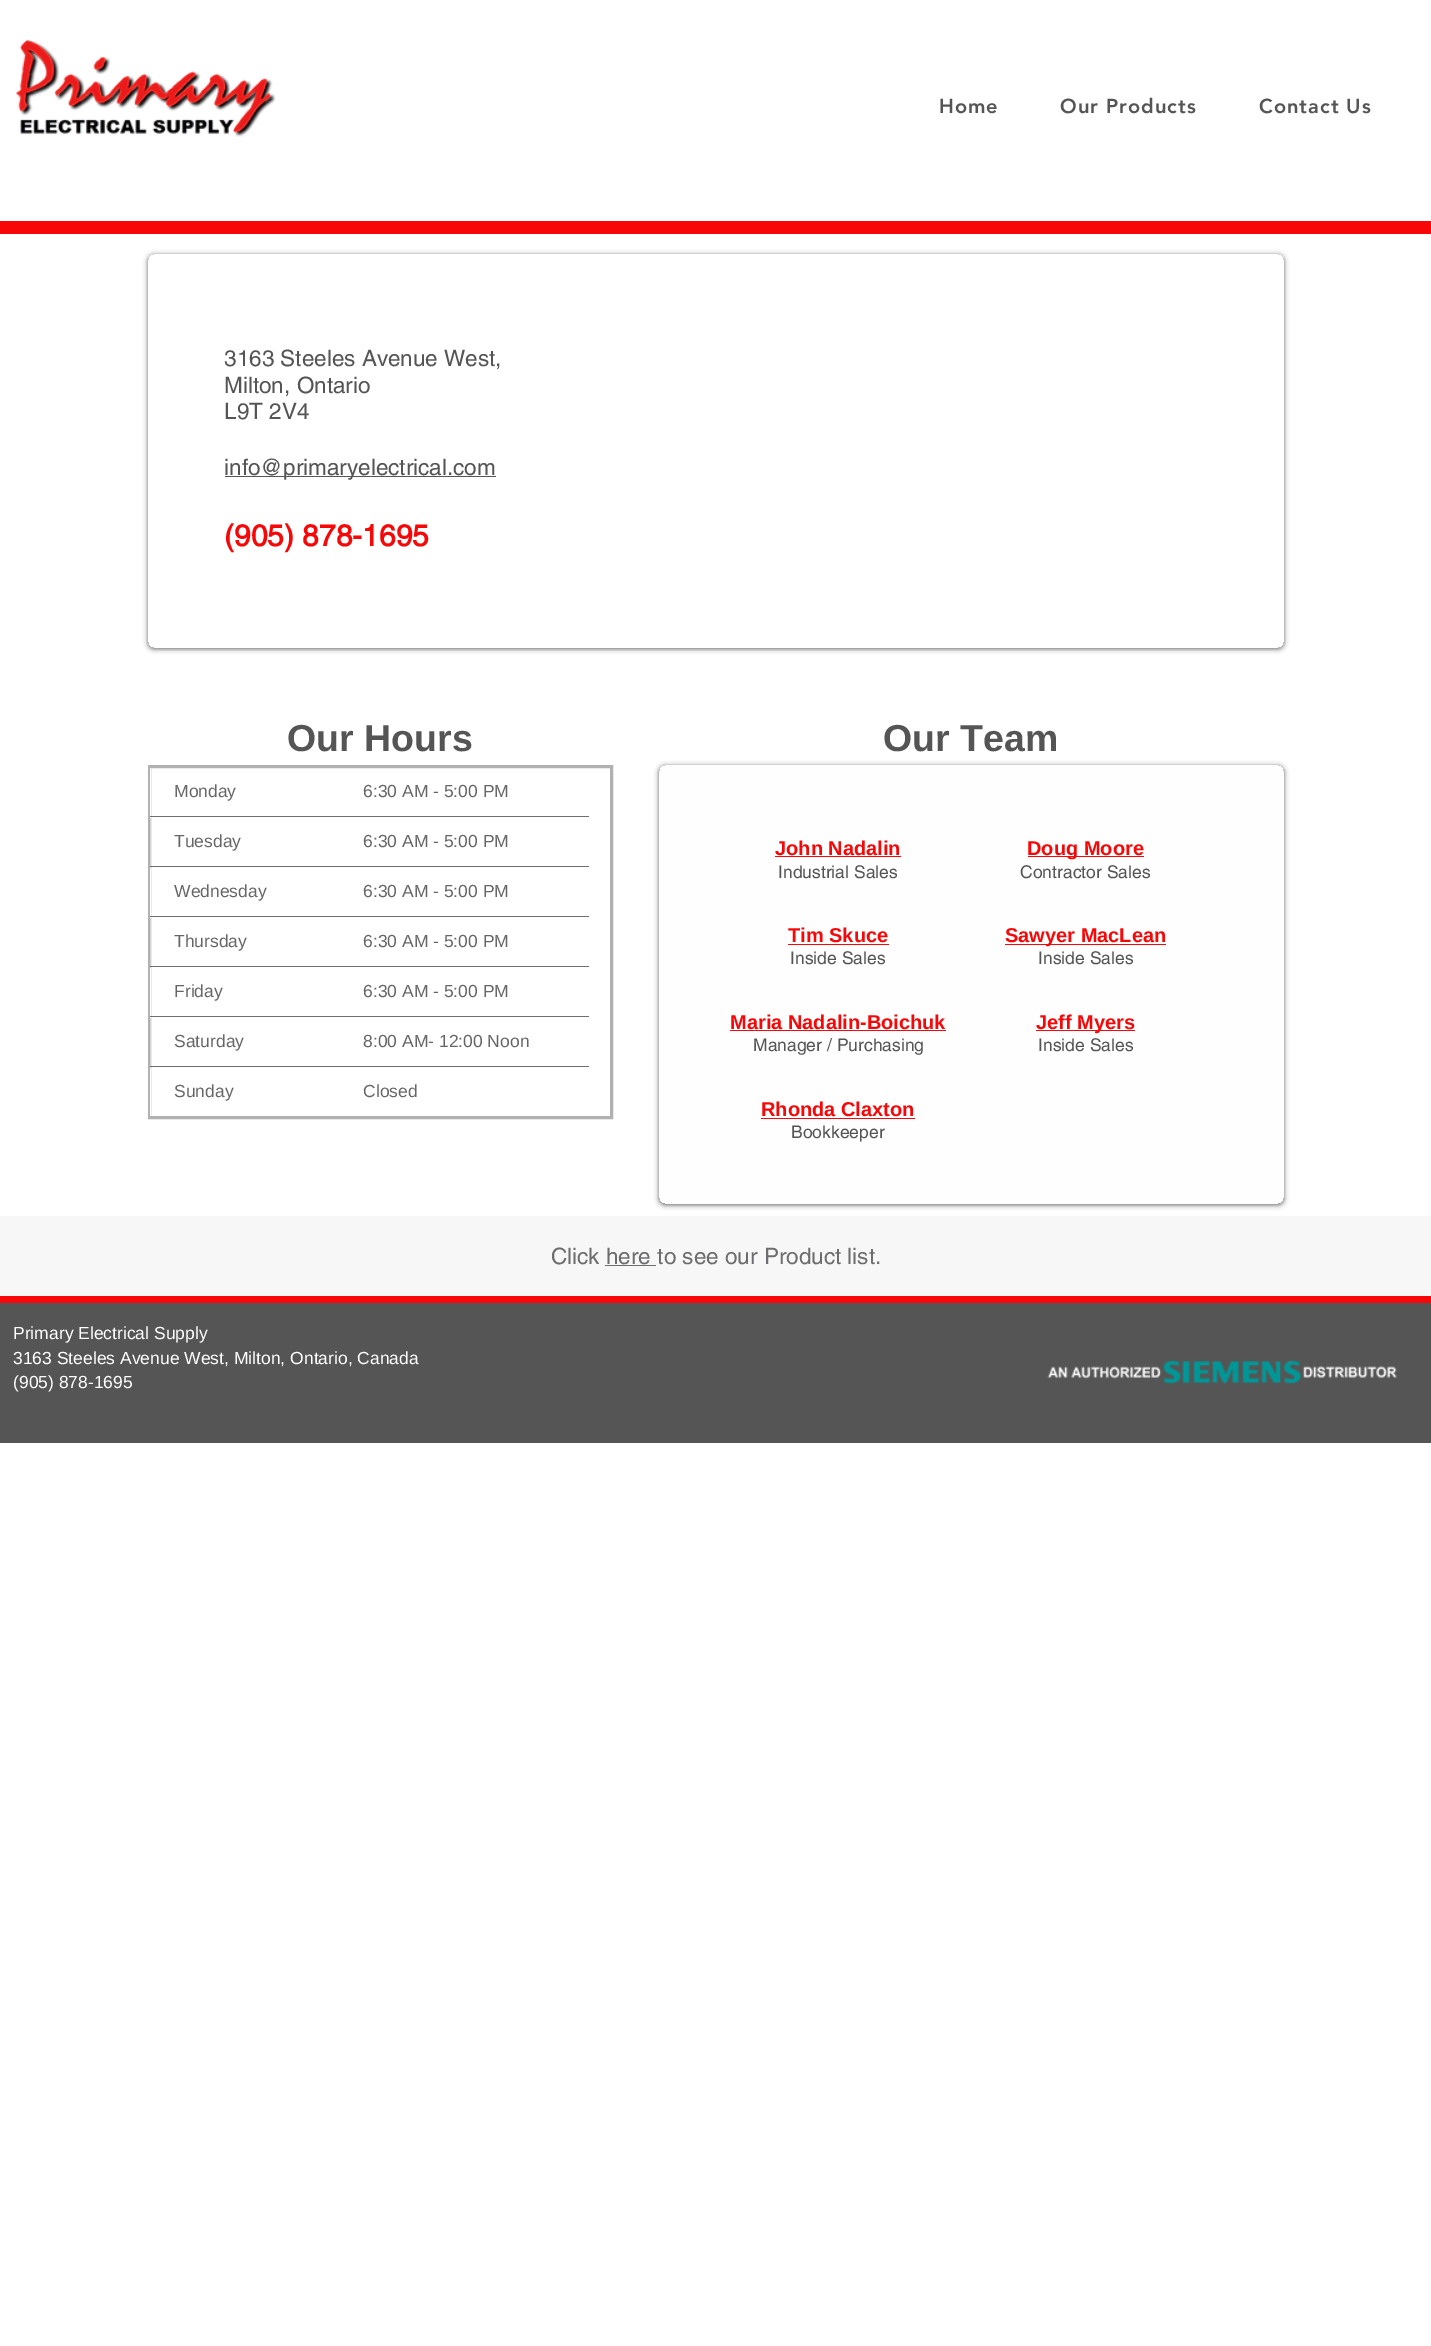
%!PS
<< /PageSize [1431 2346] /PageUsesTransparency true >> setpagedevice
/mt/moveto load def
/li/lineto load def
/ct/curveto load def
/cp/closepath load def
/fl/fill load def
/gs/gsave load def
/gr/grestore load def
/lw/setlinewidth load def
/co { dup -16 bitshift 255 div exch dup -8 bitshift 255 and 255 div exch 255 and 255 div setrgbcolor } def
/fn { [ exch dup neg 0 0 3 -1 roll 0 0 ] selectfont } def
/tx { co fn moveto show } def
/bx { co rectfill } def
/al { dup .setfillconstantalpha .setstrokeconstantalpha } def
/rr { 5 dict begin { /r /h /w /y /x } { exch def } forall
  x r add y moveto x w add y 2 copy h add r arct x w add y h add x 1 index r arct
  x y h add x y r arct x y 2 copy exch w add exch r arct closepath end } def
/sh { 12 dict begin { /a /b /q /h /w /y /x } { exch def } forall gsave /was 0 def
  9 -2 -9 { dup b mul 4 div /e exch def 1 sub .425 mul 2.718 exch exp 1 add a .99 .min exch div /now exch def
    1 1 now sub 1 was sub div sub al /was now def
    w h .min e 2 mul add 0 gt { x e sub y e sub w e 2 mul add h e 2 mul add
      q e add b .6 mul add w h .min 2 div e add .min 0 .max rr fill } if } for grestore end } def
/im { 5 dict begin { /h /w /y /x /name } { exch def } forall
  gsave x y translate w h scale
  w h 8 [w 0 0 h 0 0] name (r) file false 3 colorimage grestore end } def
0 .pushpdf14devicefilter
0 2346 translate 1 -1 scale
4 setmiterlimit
0 0 1431 2346 16#FFFFFF bx
(media/1.raw) 16 39 260 98 im
0 221 1431 13 16#F70707 bx
gs
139 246 mt 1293 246 li 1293 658 li 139 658 li cp 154 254 mt 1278 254 li 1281.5 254 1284 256.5 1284 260 ct 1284 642 li 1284 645.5 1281.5 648 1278 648 ct 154 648 li 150.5 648 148 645.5 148 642 ct 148 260 li 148 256.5 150.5 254 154 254 ct cp eoclip newpath
16#000000 co
148 255 1136 394 6 2.5 .6 sh
gr
0.29 al
16#FFFFFF co
148 254 1136 394 6 rr fl
1 al
225 476 271 1 16#555555 bx
16#B1B1B1 co
3 lw
149.5 766.5 462 351 rectstroke
150 768 1 50 16#FFFFFF bx
150 816 439 1 16#6E6E6E bx
0.4 al
150 818 1 50 16#FFFFFF bx
1 al
150 866 439 1 16#6E6E6E bx
150 868 1 50 16#FFFFFF bx
150 916 439 1 16#6E6E6E bx
0.4 al
150 918 1 50 16#FFFFFF bx
1 al
150 966 439 1 16#6E6E6E bx
150 968 1 50 16#FFFFFF bx
150 1016 439 1 16#6E6E6E bx
0.4 al
150 1018 1 50 16#FFFFFF bx
1 al
150 1066 439 1 16#6E6E6E bx
150 1068 1 48 16#FFFFFF bx
gs
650 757 mt 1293 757 li 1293 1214 li 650 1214 li cp 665 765 mt 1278 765 li 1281.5 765 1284 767.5 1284 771 ct 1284 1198 li 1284 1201.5 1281.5 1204 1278 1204 ct 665 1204 li 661.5 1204 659 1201.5 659 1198 ct 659 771 li 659 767.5 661.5 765 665 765 ct cp eoclip newpath
16#000000 co
659 766 625 439 6 2.5 .6 sh
gr
0.1 al
16#F7F7F7 co
659 765 625 439 6 rr fl
1 al
775 856 126 1 16#F70707 bx
788 944 101 1 16#F70707 bx
730 1030 216 1 16#F70707 bx
761 1118 154 1 16#F70707 bx
1028 856 116 1 16#F70707 bx
1005 944 161 1 16#F70707 bx
1036 1030 99 1 16#F70707 bx
0 1216 1431 80 16#F7F7F7 bx
605 1265 51 1 16#6D6D6F bx
0 1296 1431 7 16#F70707 bx
0 1303 1431 140 16#555555 bx
(media/2.raw) 1047 1360 350 24 im
/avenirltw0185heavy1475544-Black 20 fn
939 113 mt 1 0 (Home) ashow
1060 113 mt 1 0 (Our Products) ashow
1259 113 mt 1 0 (Contact Us) ashow
(3163 Steeles Avenue West,) 224 366 /helvetica-Regular 22.5 16#555555 tx
(Milton, Ontario) 224 393 /helvetica-Regular 22.5 16#555555 tx
(L9T 2V4) 224 419 /helvetica-Regular 22.5 16#555555 tx
(info@primaryelectrical.com) 224 475 /helvetica-Regular 22.5 16#555555 tx
(\(905\) 878-1695) 224 546 /helvetica-Bold 30 16#F70707 tx
(Our Hours) 287 751 /LiberationSans-Bold 37.5 16#555555 tx
(Our Team) 883 751 /LiberationSans-Bold 37.5 16#555555 tx
(Monday) 174 797 /LiberationSans-Regular 17.5 16#666666 tx
(6:30 AM - 5:00 PM) 363 797 /LiberationSans-Regular 17.5 16#666666 tx
(Tuesday) 174 847 /LiberationSans-Regular 17.5 16#666666 tx
(6:30 AM - 5:00 PM) 363 847 /LiberationSans-Regular 17.5 16#666666 tx
(Wednesday) 174 897 /LiberationSans-Regular 17.5 16#666666 tx
(6:30 AM - 5:00 PM) 363 897 /LiberationSans-Regular 17.5 16#666666 tx
(Thursday) 174 947 /LiberationSans-Regular 17.5 16#666666 tx
(6:30 AM - 5:00 PM) 363 947 /LiberationSans-Regular 17.5 16#666666 tx
(Friday) 174 997 /LiberationSans-Regular 17.5 16#666666 tx
(6:30 AM - 5:00 PM) 363 997 /LiberationSans-Regular 17.5 16#666666 tx
(Saturday) 174 1047 /LiberationSans-Regular 17.5 16#666666 tx
(8:00 AM- 12:00 Noon) 363 1047 /LiberationSans-Regular 17.5 16#666666 tx
(Sunday) 174 1097 /LiberationSans-Regular 17.5 16#666666 tx
(Closed) 363 1097 /LiberationSans-Regular 17.5 16#666666 tx
(John Nadalin) 775 855 /LiberationSans-Bold 20 16#F70707 tx
(Industrial Sales) 778 878 /helvetica-Regular 17.5 16#555555 tx
(Tim Skuce) 788 942 /LiberationSans-Bold 20 16#F70707 tx
(Inside Sales) 790 964 /helvetica-Regular 17.5 16#555555 tx
(Maria Nadalin-Boichuk) 730 1029 /LiberationSans-Bold 20 16#F70707 tx
(Manager / Purchasing) 753 1051 /helvetica-Regular 17.5 16#555555 tx
(Rhonda Claxton) 761 1116 /LiberationSans-Bold 20 16#F70707 tx
(Bookkeeper) 791 1138 /helvetica-Regular 17.5 16#555555 tx
(Doug Moore) 1027 855 /LiberationSans-Bold 20 16#F70707 tx
(Contractor Sales) 1020 878 /helvetica-Regular 17.5 16#555555 tx
(Sawyer MacLean) 1005 942 /LiberationSans-Bold 20 16#F70707 tx
(Inside Sales) 1038 964 /helvetica-Regular 17.5 16#555555 tx
(Jeff Myers) 1036 1029 /LiberationSans-Bold 20 16#F70707 tx
(Inside Sales) 1038 1051 /helvetica-Regular 17.5 16#555555 tx
(Click here to see our Product list.) 551 1264 /helvetica-Regular 22.5 16#6D6D6F tx
(Primary Electrical Supply) 13 1339 /LiberationSans-Regular 17.5 16#FFFFFF tx
(3163 Steeles Avenue West, Milton, Ontario, Canada) 13 1364 /LiberationSans-Regular 17.5 16#FFFFFF tx
(\(905\) 878-1695) 13 1388 /LiberationSans-Regular 17.5 16#FFFFFF tx
.poppdf14devicefilter showpage
